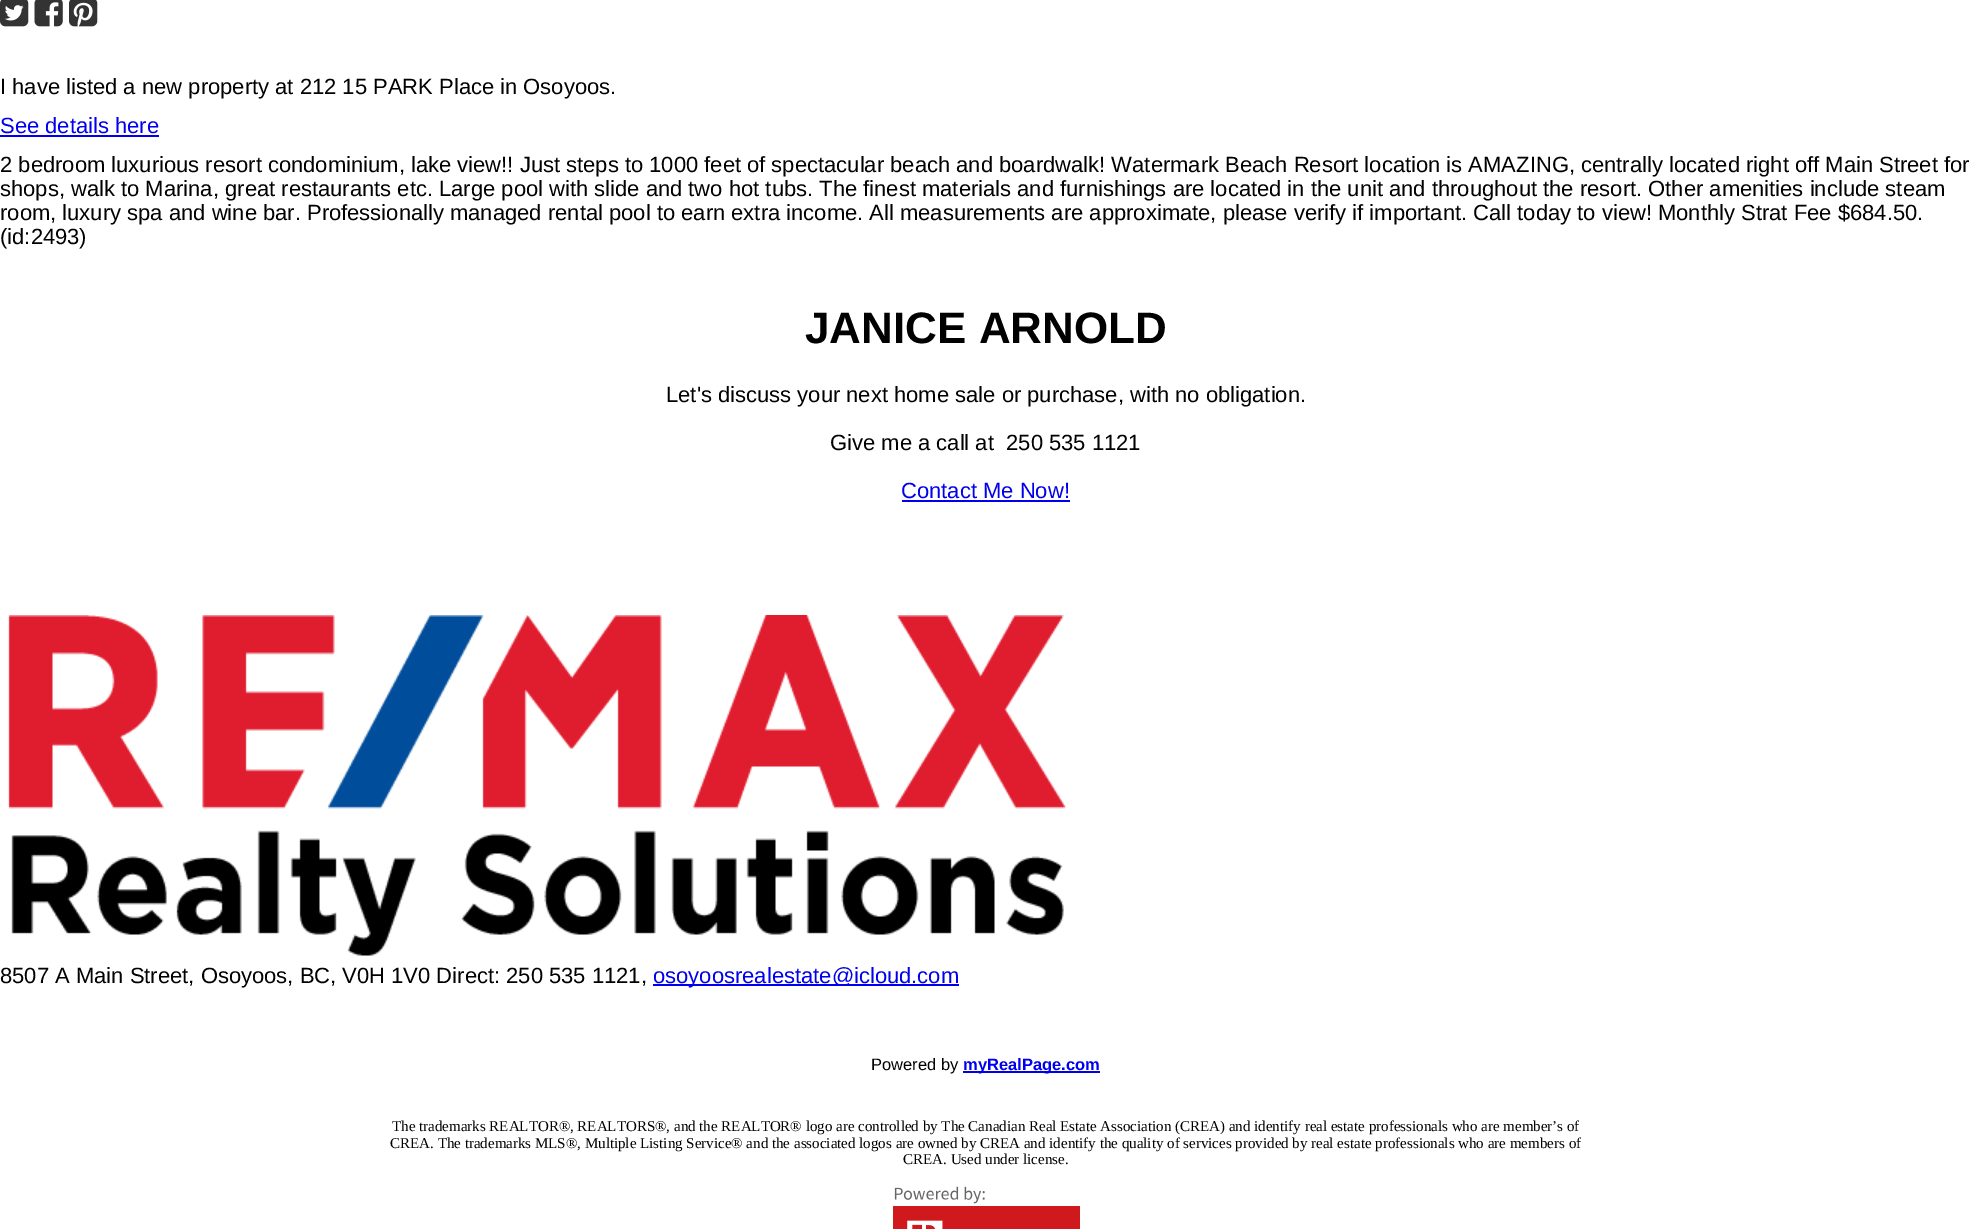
%!PS
<< /PageSize [1971 1229] >> setpagedevice
/co { dup -16 bitshift 255 div exch dup -8 bitshift 255 and 255 div exch 255 and 255 div setrgbcolor } def
/fn { [ exch dup neg 0 0 3 -1 roll 0 0 ] selectfont } def
/tx { co fn moveto show } def
/bx { co rectfill } def
/im { 5 dict begin { /h /w /y /x /name } { exch def } forall
  gsave x y translate w h scale
  w h 8 [w 0 0 h 0 0] name (r) file false 3 colorimage grestore end } def
0 1229 translate 1 -1 scale
4 setmiterlimit
0 0 1971 1229 16#FFFFFF bx
(media/1.raw) 0 0 29 27 im
(media/2.raw) 34 0 29 27 im
(media/3.raw) 69 0 29 27 im
0 135 159 2 16#0000EE bx
902 500 168 2 16#0000EE bx
(media/4.raw) 8 615 1058 341 im
653 984 306 2 16#0000EE bx
963 1071 137 2 16#0000EE bx
(media/5.raw) 893 1186 187 43 im
(I have listed a new property at 212 15 PARK Place in Osoyoos.) 0 94 /LiberationSans-Regular 22 16#000000 tx
(See details here) 0 133 /LiberationSans-Regular 22 16#0000EE tx
(2 bedroom luxurious resort condominium, lake view!! Just steps to 1000 feet of spectacular beach and boardwalk! Watermark Beach Resort location is AMAZING, centrally located right off Main Street for) 0 172 /LiberationSans-Regular 22 16#000000 tx
(shops, walk to Marina, great restaurants etc. Large pool with slide and two hot tubs. The finest materials and furnishings are located in the unit and throughout the resort. Other amenities include steam) 0 196 /LiberationSans-Regular 22 16#000000 tx
(room, luxury spa and wine bar. Professionally managed rental pool to earn extra income. All measurements are approximate, please verify if important. Call today to view! Monthly Strat Fee $684.50.) 0 220 /LiberationSans-Regular 22 16#000000 tx
(\(id:2493\)) 0 244 /LiberationSans-Regular 22 16#000000 tx
(JANICE ARNOLD) 805 343 /LiberationSans-Bold 44 16#000000 tx
(Let's discuss your next home sale or purchase, with no obligation.) 666 402 /LiberationSans-Regular 22 16#000000 tx
(Give me a call at  250 535 1121) 830 450 /LiberationSans-Regular 22 16#000000 tx
(Contact Me Now!) 901 498 /LiberationSans-Regular 22 16#0000EE tx
(8507 A Main Street, Osoyoos, BC, V0H 1V0 Direct: 250 535 1121,) 0 983 /LiberationSans-Regular 22 16#000000 tx
(osoyoosrealestate@icloud.com) 653 983 /LiberationSans-Regular 22 16#0000EE tx
(Powered by) 871 1070 /LiberationSans-Regular 16.5 16#000000 tx
(myRealPage.com) 963 1070 /LiberationSans-Bold 16.5 16#0000EE tx
(The trademarks REALTOR®, REALTORS®, and the REALTOR® logo are controlled by The Canadian Real Estate Association \(CREA\) and identify real estate professionals who are member’s of) 392 1131 /LiberationSerif-Regular 15 16#000000 tx
(CREA. The trademarks MLS®, Multiple Listing Service® and the associated logos are owned by CREA and identify the quality of services provided by real estate professionals who are members of) 390 1148 /LiberationSerif-Regular 15 16#000000 tx
(CREA. Used under license.) 903 1164 /LiberationSerif-Regular 15 16#000000 tx
showpage
